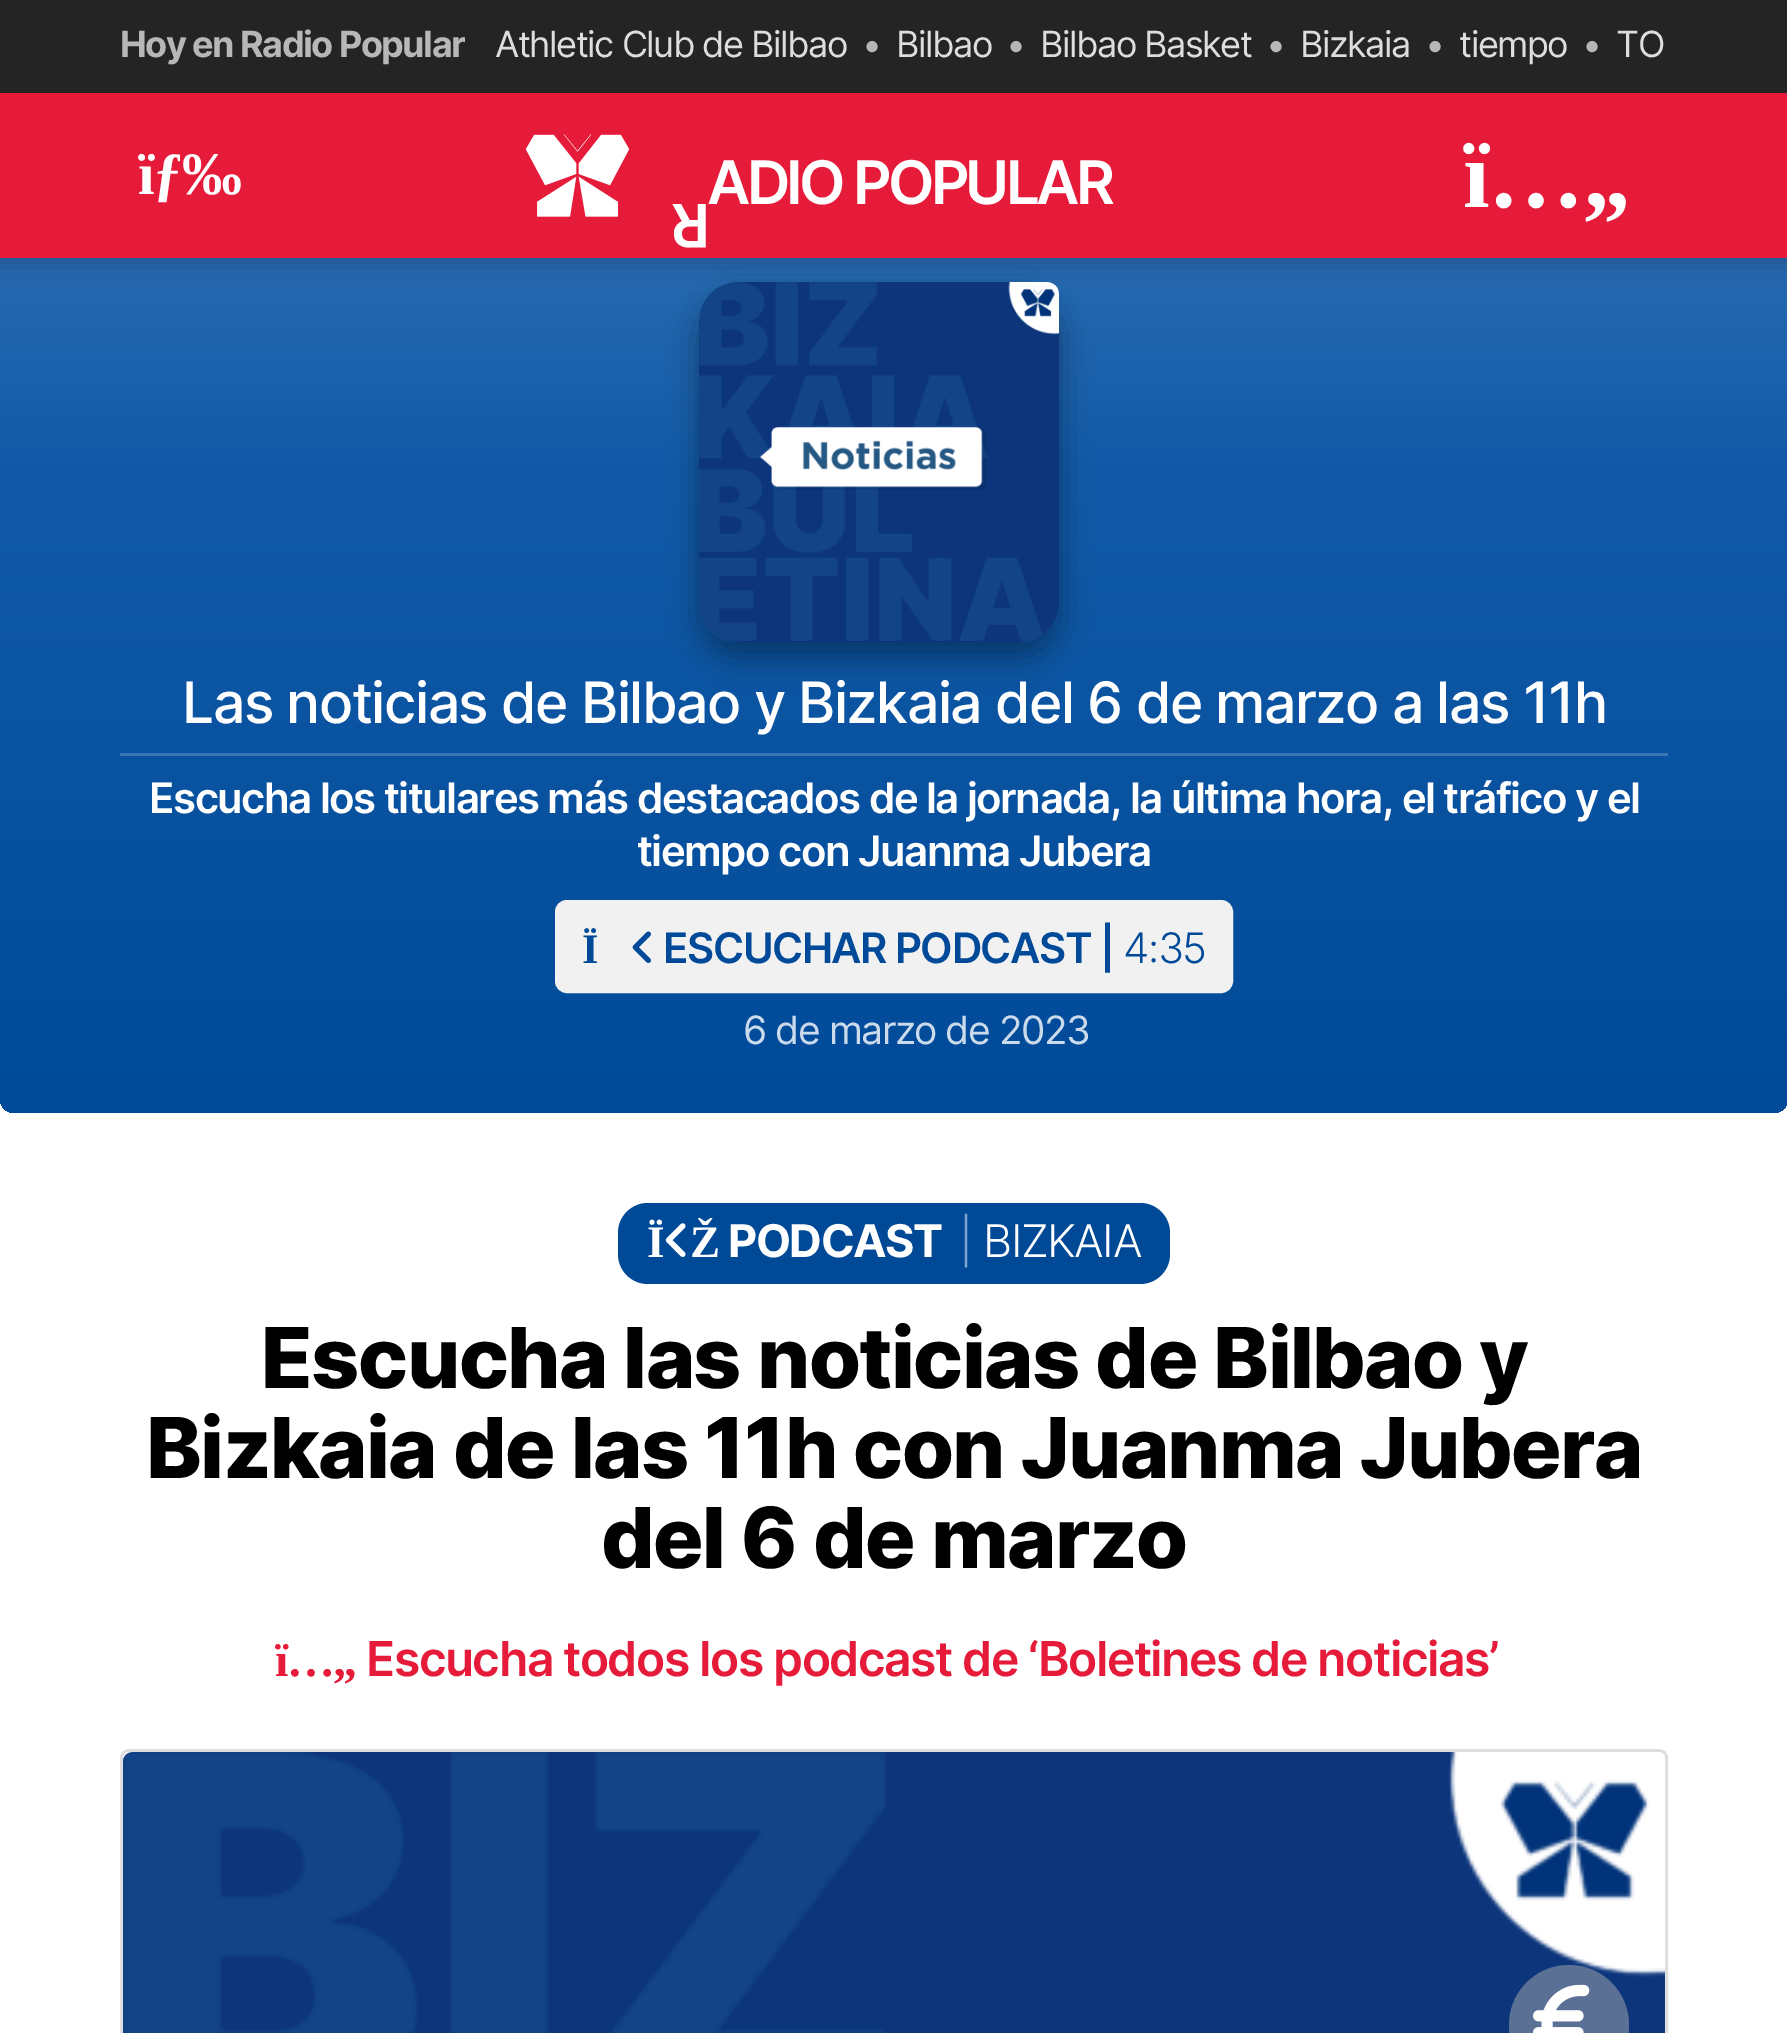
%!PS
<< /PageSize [1787 2033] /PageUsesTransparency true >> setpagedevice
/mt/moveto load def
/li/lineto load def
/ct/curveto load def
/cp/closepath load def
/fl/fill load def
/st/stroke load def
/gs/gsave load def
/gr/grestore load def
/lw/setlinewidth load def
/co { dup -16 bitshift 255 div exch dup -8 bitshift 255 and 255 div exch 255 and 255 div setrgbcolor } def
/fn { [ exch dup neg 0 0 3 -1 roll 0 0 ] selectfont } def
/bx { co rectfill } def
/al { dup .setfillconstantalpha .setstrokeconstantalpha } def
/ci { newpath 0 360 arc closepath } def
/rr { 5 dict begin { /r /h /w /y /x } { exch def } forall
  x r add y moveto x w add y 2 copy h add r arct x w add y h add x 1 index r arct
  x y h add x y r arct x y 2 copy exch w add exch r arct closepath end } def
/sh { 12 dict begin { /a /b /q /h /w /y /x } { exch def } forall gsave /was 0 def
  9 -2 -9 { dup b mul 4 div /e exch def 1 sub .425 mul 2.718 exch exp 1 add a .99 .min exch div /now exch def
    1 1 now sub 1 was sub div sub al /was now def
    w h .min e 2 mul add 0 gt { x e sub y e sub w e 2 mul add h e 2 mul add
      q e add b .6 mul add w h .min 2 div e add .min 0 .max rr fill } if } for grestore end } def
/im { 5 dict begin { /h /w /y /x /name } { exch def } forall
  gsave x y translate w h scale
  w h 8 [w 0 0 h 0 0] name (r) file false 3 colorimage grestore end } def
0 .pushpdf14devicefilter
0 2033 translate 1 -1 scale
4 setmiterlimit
0 0 1787 2033 16#FFFFFF bx
gs 0 252 mt 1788 252 li 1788 1098 li 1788 1106.5 1781.5 1113 1773 1113 ct 15 1113 li 6.5 1113 0 1106.5 0 1098 ct cp clip newpath
<< /ShadingType 2 /ColorSpace /DeviceRGB /Coords [894 252 894 1113] /Extend [true true] /Function << /FunctionType 3 /Domain [0 1] /Functions [<< /FunctionType 2 /Domain [0 1] /C0 [.153 .416 .69] /C1 [.071 .353 .659] /N 1 >> << /FunctionType 2 /Domain [0 1] /C0 [.071 .353 .659] /C1 [0 .29 .6] /N 1 >>] /Bounds [.25] /Encode [0 1 0 1] >> >> shfill gr
16#000000 co
699 297 360 360 39 15 .35 sh
(media/2.raw) 699 282 360 360 im
0 96 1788 165 0 12 .25 sh
0 0 1787 93 16#242424 bx
0 93 1787 165 16#E61A39 bx
(media/1.raw) 525 134 105 83 im
120 753 1548 3 16#3B75B4 bx
16#F1F1F1 co
556.5 901.5 675 90 10.5 rr gs fl gr
3 lw
st
(media/3.raw) 632 931 19 32 im
16#004997 co
618 1203 552 81 30 rr fl
(media/4.raw) 665 1223 21 34 im
16#DEDEDE co
121.5 1750.5 1545 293 7.5 rr st
(media/5.raw) 123 1752 1542 281 im
0.48 al
16#B0B0B0 co
1569 2025 60 ci fl
1 al
(media/6.raw) 1533 1984 57 49 im
/Inter-Bold 36 fn
16#B7B7B7 co
120 57 mt -1.5 0 (Hoy en Radio Popular) ashow
/Inter-Regular 36 fn
16#DDDDDD co
495 57 mt -1.5 0 (Athletic Club de Bilbao) ashow
16#B7B7B7 co
862 57 mt -1.5 0 (•) ashow
16#DDDDDD co
896 57 mt -1.5 0 (Bilbao) ashow
16#B7B7B7 co
1006 57 mt -1.5 0 (•) ashow
16#DDDDDD co
1040 57 mt -1.5 0 (Bilbao Basket) ashow
16#B7B7B7 co
1266 57 mt -1.5 0 (•) ashow
16#DDDDDD co
1300 57 mt -1.5 0 (Bizkaia) ashow
16#B7B7B7 co
1425 57 mt -1.5 0 (•) ashow
16#DDDDDD co
1459 57 mt -1.5 0 (tiempo) ashow
16#B7B7B7 co
1582 57 mt -1.5 0 (•) ashow
16#DDDDDD co
1616 57 mt -1.5 0 (TO) ashow
/LiberationSerif-Bold 60 fn
16#FFFFFF co
138 194 mt -1.5 0 (ïƒ‰) ashow
/Inter-SemiBold 60 fn
707 204 mt -3.75 0 (ADIO POPULAR) ashow
gs 710 204 translate 180 rotate 0 0 mt -4 0 (R) ashow gr
/LiberationSerif-Bold 96 fn
1463 207 mt -1.5 0 (ï…„) ashow
/Inter-Medium 57 fn
182 723 mt -1.5 0 (Las noticias de Bilbao y Bizkaia del 6 de marzo a las 11h) ashow
/Inter-SemiBold 42 fn
149 813 mt -1.5 0 (Escucha los titulares más destacados de la jornada, la última hora, el tráfico y el) ashow
637 866 mt -1.5 0 (tiempo con Juanma Jubera) ashow
/LiberationSerif-Bold 42 fn
16#004A99 co
582 963 mt -1.5 0 (Ï) ashow
/Inter-SemiBold 42 fn
663 963 mt -1.5 0 (ESCUCHAR PODCAST |) ashow
/Inter-Light 42 fn
1123 963 mt -1.5 0 (4:35) ashow
/Inter-Regular 39 fn
16#CCDBEB co
743 1044 mt -1.5 0 (6 de marzo de 2023) ashow
/LiberationSerif-Bold 45 fn
16#FFFFFF co
647 1257 mt -1.5 0 (Ï) ashow
690 1257 mt -1.5 0 (Ž) ashow
/Inter-Bold 45 fn
728 1257 mt -1.5 0 (PODCAST) ashow
/Inter-Light 45 fn
16#80A4CB co
959 1257 mt -1.5 0 (|) ashow
16#FFFFFF co
983 1257 mt -1.5 0 (BIZKAIA) ashow
/Inter-ExtraBold 84 fn
16#000000 co
261 1388 mt -1.5 0 (Escucha las noticias de Bilbao y) ashow
146 1478 mt -1.5 0 (Bizkaia de las 11h con Juanma Jubera) ashow
601 1568 mt -1.5 0 (del 6 de marzo) ashow
/LiberationSerif-Bold 48 fn
16#E61A39 co
275 1676 mt -1.5 0 (ï…„) ashow
/Inter-SemiBold 48 fn
366 1676 mt -1.5 0 (Escucha todos los podcast de ‘Boletines de noticias’) ashow
.poppdf14devicefilter showpage
